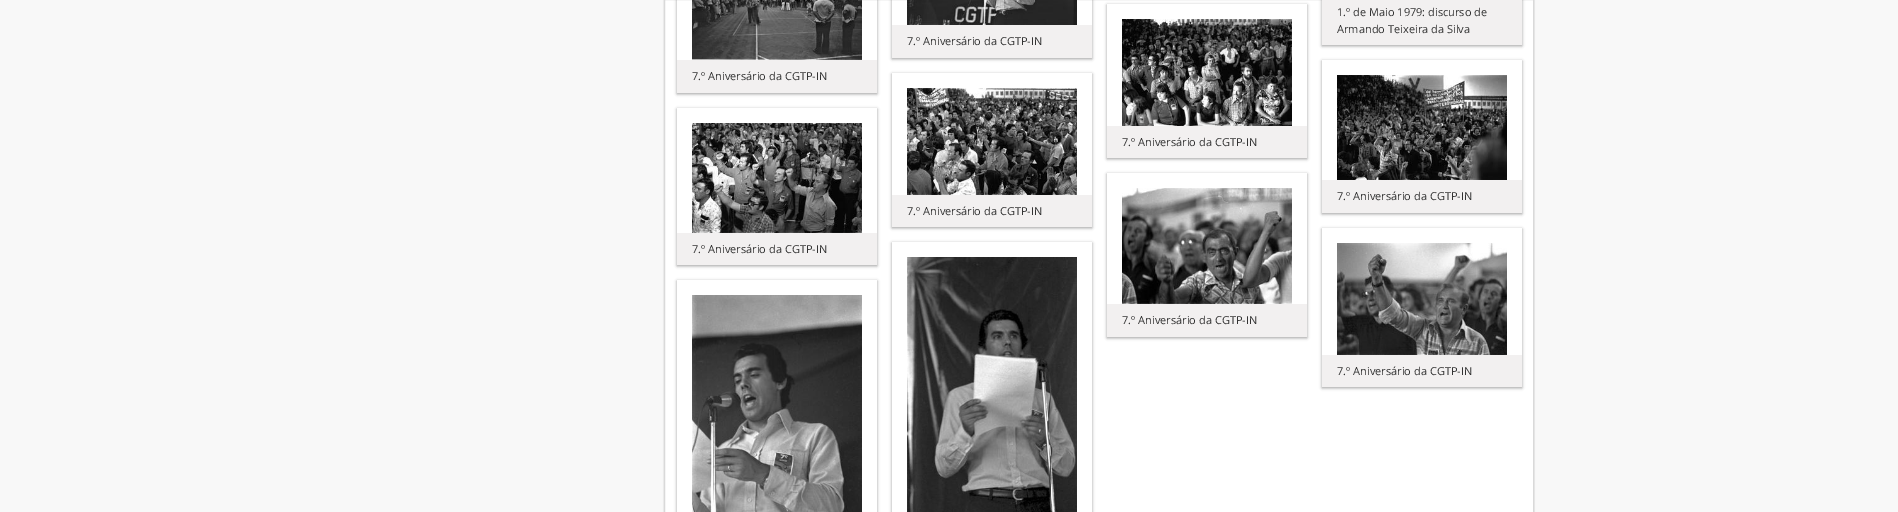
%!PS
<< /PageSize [1898 512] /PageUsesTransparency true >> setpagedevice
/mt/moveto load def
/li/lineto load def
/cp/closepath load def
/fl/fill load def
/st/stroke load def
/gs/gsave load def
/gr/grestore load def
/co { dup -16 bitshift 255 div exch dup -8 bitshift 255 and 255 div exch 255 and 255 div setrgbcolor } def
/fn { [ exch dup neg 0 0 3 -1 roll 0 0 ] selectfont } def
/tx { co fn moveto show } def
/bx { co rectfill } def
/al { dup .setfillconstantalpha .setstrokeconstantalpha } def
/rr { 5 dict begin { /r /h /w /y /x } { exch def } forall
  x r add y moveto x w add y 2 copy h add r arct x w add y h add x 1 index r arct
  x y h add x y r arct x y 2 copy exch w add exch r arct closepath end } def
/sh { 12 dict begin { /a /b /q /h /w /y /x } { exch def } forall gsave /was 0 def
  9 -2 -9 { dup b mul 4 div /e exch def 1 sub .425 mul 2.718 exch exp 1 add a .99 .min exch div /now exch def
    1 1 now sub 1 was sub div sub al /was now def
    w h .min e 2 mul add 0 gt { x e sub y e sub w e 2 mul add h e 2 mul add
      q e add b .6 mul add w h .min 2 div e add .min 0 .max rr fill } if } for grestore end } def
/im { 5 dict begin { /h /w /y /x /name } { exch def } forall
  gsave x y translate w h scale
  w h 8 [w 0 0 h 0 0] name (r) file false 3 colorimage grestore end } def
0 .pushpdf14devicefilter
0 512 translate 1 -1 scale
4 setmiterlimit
0 0 1898 512 16#F8F8F8 bx
16#000000 co
664 -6 870 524 4 .5 .2 sh
16#FFFFFF co
664.5 -.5 mt 1533.5 -.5 li 1533.5 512.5 li 664.5 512.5 li cp gs fl gr
16#D9D9D9 co
st
16#191919 co
1322 -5 200 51 0 1.5 .4 sh
1322 0 200 45 16#F2F0F0 bx
gs
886 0 mt 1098 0 li 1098 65 li 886 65 li cp 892 -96 mt 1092 -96 li 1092 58 li 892 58 li cp eoclip newpath
16#191919 co
892 -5 200 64 0 1.5 .4 sh
gr
(media/1.raw) 907 0 170 25 im
892 25 200 33 16#F2F0F0 bx
gs
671 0 mt 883 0 li 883 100 li 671 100 li cp 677 -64 mt 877 -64 li 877 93 li 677 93 li cp eoclip newpath
16#191919 co
677 -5 200 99 0 1.5 .4 sh
gr
(media/2.raw) 692 0 170 60 im
677 60 200 33 16#F2F0F0 bx
gs
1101 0 mt 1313 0 li 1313 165 li 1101 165 li cp 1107 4 mt 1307 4 li 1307 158 li 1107 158 li cp eoclip newpath
16#191919 co
1107 5 200 154 0 1.5 .4 sh
gr
(media/3.raw) 1122 19 170 107 im
1107 126 200 32 16#F2F0F0 bx
gs
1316 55 mt 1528 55 li 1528 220 li 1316 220 li cp 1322 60 mt 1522 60 li 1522 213 li 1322 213 li cp eoclip newpath
16#191919 co
1322 61 200 153 0 1.5 .4 sh
gr
(media/4.raw) 1337 75 170 105 im
1322 180 200 33 16#F2F0F0 bx
gs
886 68 mt 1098 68 li 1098 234 li 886 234 li cp 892 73 mt 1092 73 li 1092 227 li 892 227 li cp eoclip newpath
16#191919 co
892 74 200 154 0 1.5 .4 sh
gr
(media/5.raw) 907 88 170 107 im
892 195 200 32 16#F2F0F0 bx
gs
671 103 mt 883 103 li 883 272 li 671 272 li cp 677 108 mt 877 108 li 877 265 li 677 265 li cp eoclip newpath
16#191919 co
677 109 200 157 0 1.5 .4 sh
gr
(media/6.raw) 692 123 170 110 im
677 233 200 32 16#F2F0F0 bx
gs
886 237 mt 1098 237 li 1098 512 li 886 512 li cp 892 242 mt 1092 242 li 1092 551 li 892 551 li cp eoclip newpath
16#191919 co
892 243 200 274 0 1.5 .4 sh
gr
(media/7.raw) 907 257 170 255 im
gs
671 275 mt 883 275 li 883 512 li 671 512 li cp 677 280 mt 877 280 li 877 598 li 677 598 li cp eoclip newpath
16#191919 co
677 281 200 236 0 1.5 .4 sh
gr
(media/8.raw) 692 295 170 217 im
gs
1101 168 mt 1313 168 li 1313 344 li 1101 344 li cp 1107 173 mt 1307 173 li 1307 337 li 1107 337 li cp eoclip newpath
16#191919 co
1107 174 200 164 0 1.5 .4 sh
gr
(media/9.raw) 1122 188 170 116 im
1107 304 200 33 16#F2F0F0 bx
gs
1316 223 mt 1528 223 li 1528 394 li 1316 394 li cp 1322 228 mt 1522 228 li 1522 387 li 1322 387 li cp eoclip newpath
16#191919 co
1322 229 200 159 0 1.5 .4 sh
gr
(media/10.raw) 1337 243 170 112 im
1322 355 200 32 16#F2F0F0 bx
(1.º de Maio 1979: discurso de) 1337 16 /OpenSans-Regular 11 16#333333 tx
(Armando Teixeira da Silva) 1337 33 /OpenSans-Regular 11 16#333333 tx
(7.º Aniversário da CGTP-IN) 907 45 /OpenSans-Regular 11 16#333333 tx
(7.º Aniversário da CGTP-IN) 692 80 /OpenSans-Regular 11 16#333333 tx
(7.º Aniversário da CGTP-IN) 1122 146 /OpenSans-Regular 11 16#333333 tx
(7.º Aniversário da CGTP-IN) 1337 200 /OpenSans-Regular 11 16#333333 tx
(7.º Aniversário da CGTP-IN) 907 215 /OpenSans-Regular 11 16#333333 tx
(7.º Aniversário da CGTP-IN) 692 253 /OpenSans-Regular 11 16#333333 tx
(7.º Aniversário da CGTP-IN) 1122 324 /OpenSans-Regular 11 16#333333 tx
(7.º Aniversário da CGTP-IN) 1337 375 /OpenSans-Regular 11 16#333333 tx
.poppdf14devicefilter showpage
